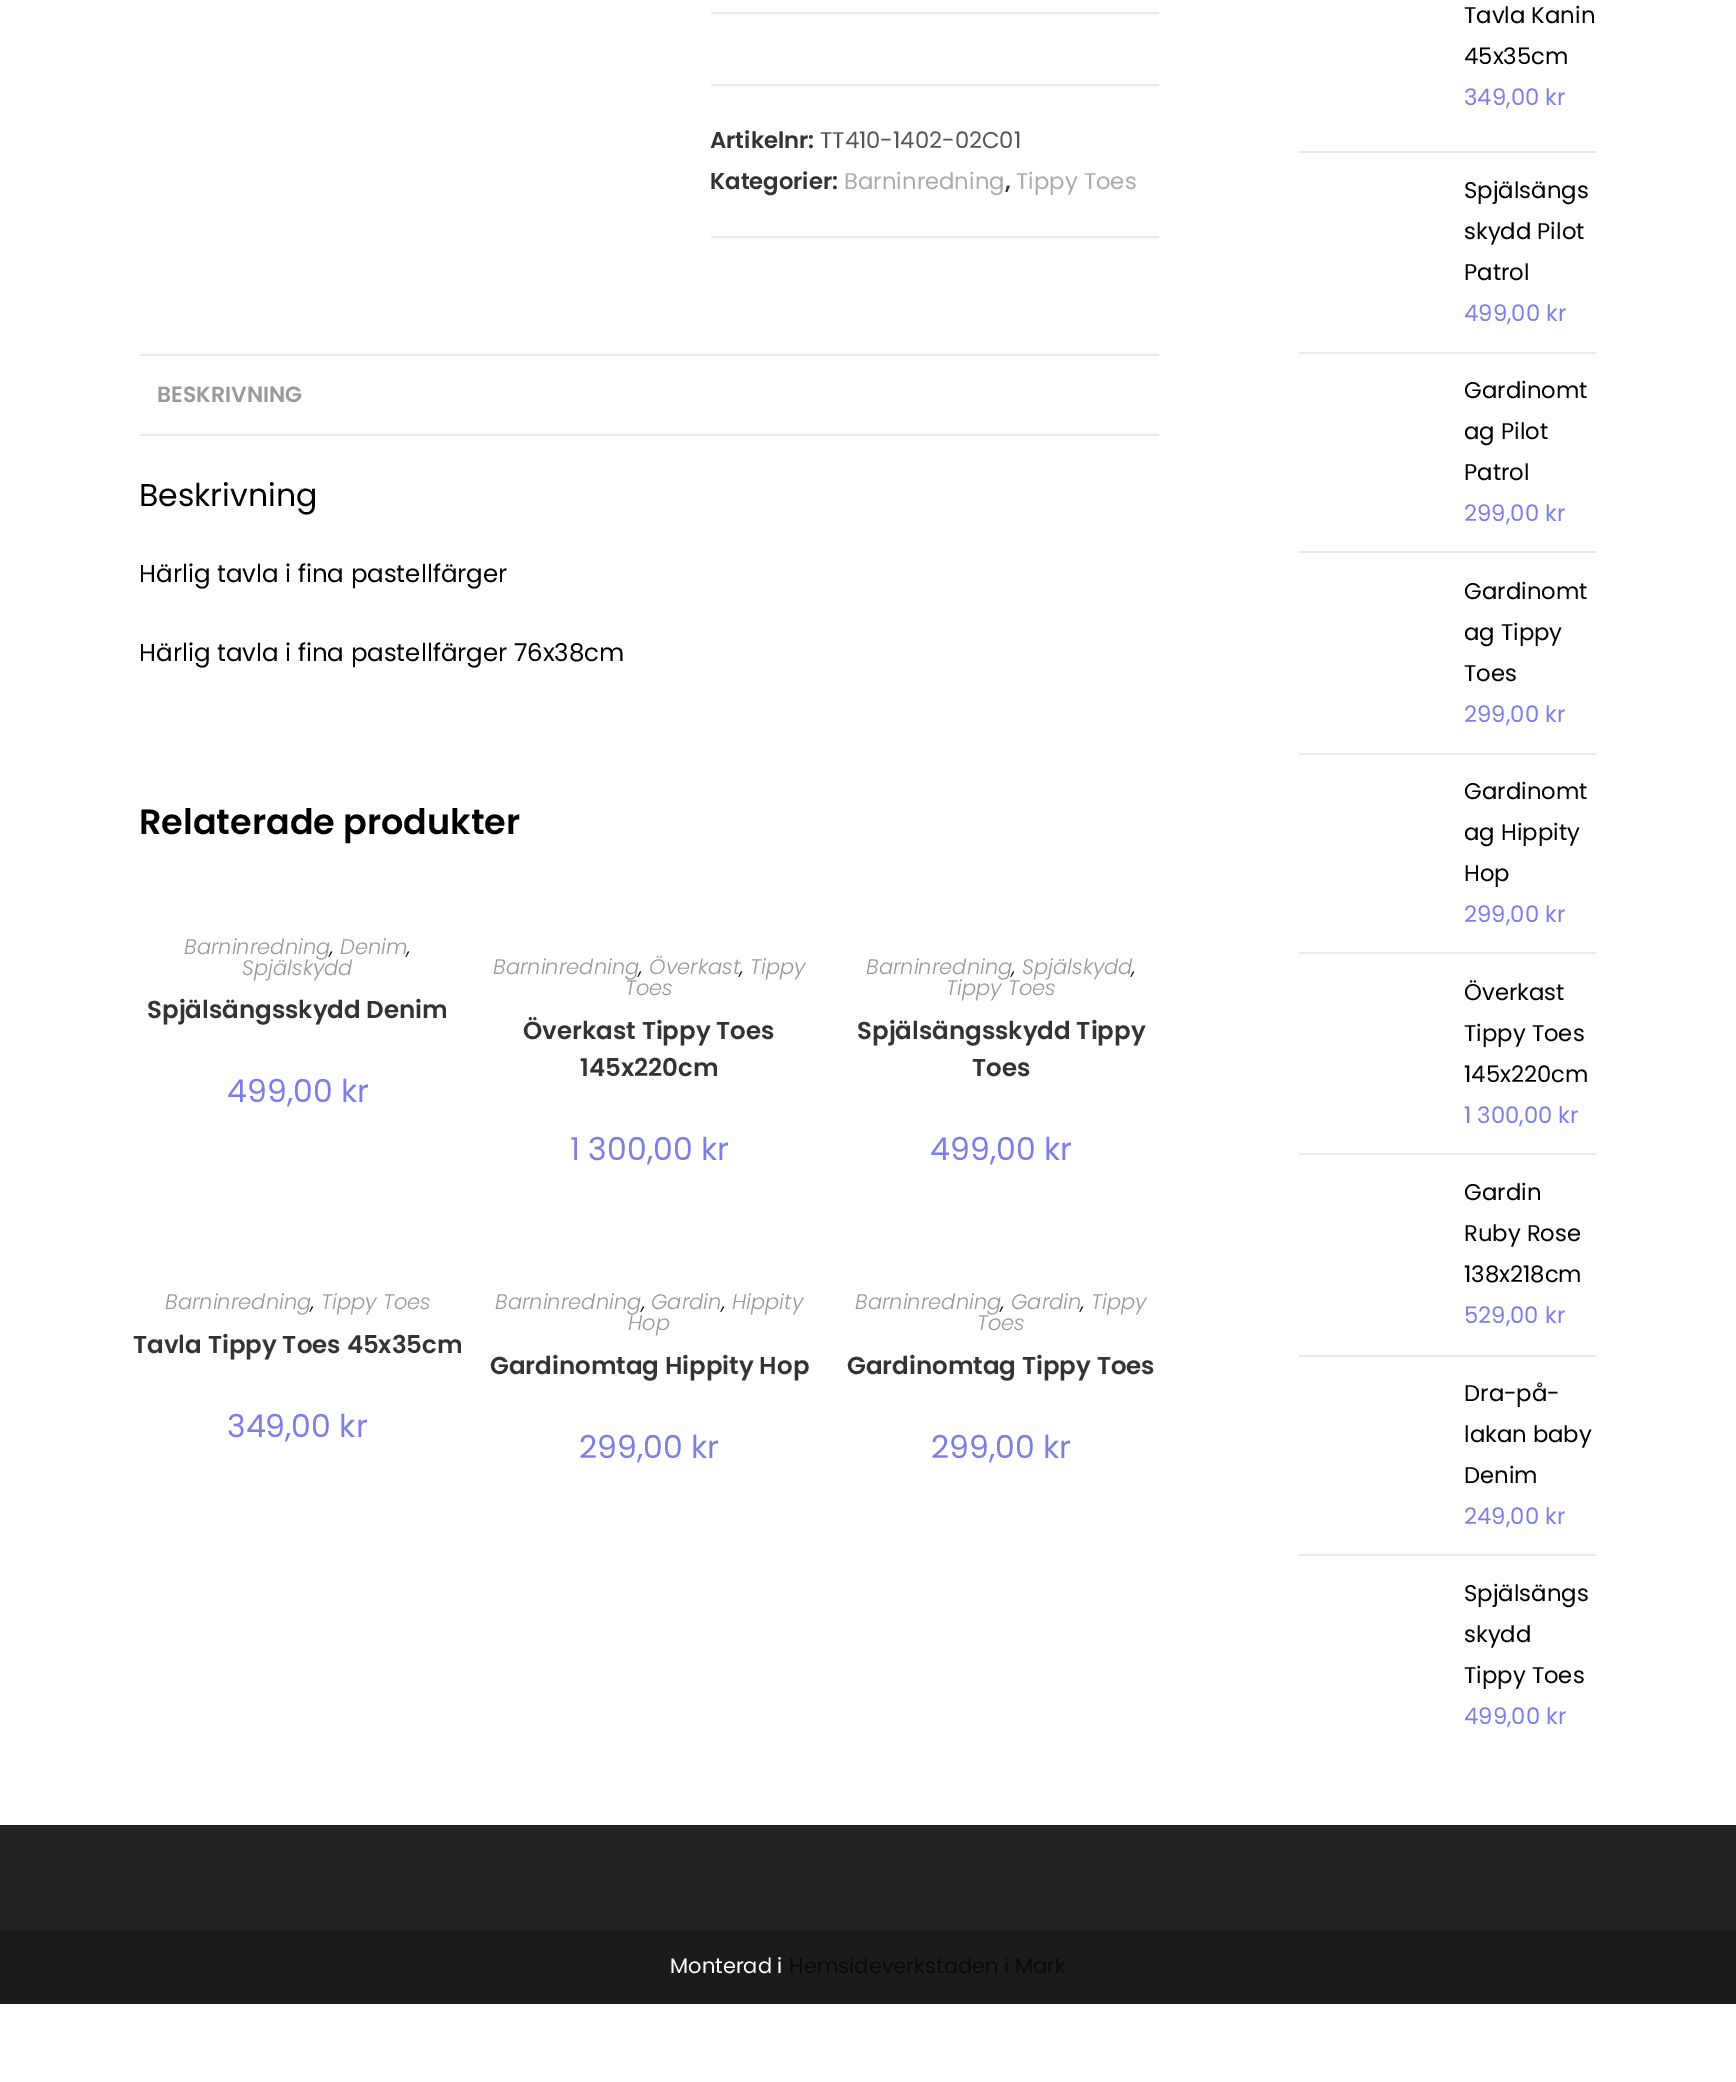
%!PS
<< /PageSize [1736 2082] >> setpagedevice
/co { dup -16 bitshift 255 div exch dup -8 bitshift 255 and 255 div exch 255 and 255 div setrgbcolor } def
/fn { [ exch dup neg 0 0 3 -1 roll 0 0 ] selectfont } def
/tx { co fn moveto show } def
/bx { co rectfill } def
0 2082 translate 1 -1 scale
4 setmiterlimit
0 0 1736 2082 16#FFFFFF bx
711 12 448 2 16#EAEAEA bx
711 84 448 2 16#EAEAEA bx
711 236 448 2 16#EAEAEA bx
140 354 1019 2 16#EAEAEA bx
140 434 1019 2 16#EAEAEA bx
1299 151 297 2 16#EAEAEA bx
1299 352 297 2 16#EAEAEA bx
1299 551 297 2 16#EAEAEA bx
1299 753 297 2 16#EAEAEA bx
1299 952 297 2 16#EAEAEA bx
1299 1153 297 2 16#EAEAEA bx
1299 1355 297 2 16#EAEAEA bx
1299 1554 297 2 16#EAEAEA bx
0 1825 1736 105 16#222222 bx
0 1930 1736 74 16#1B1B1B bx
(Artikelnr:) 710 148 /Poppins-SemiBold 22.75 16#333333 tx
(TT410-1402-02C01) 820 148 /Poppins-Regular 22.75 16#555555 tx
(Kategorier:) 710 189 /Poppins-SemiBold 22.75 16#333333 tx
(Barninredning) 844 189 /Poppins-Regular 22.75 16#ABABAB tx
(,) 1005 189 /Poppins-SemiBold 22.75 16#333333 tx
(Tippy Toes) 1016 189 /Poppins-Regular 22.75 16#ABABAB tx
(BESKRIVNING) 157 402 /Poppins-SemiBold 22 16#999999 tx
(Beskrivning) 139 506 /Poppins-Regular 31.5 16#000000 tx
(Härlig tavla i fina pastellfärger) 139 582 /Poppins-Regular 24.5 16#000000 tx
(Härlig tavla i fina pastellfärger 76x38cm) 139 661 /Poppins-Regular 24.5 16#000000 tx
(Relaterade produkter) 139 834 /Poppins-SemiBold 35 16#000000 tx
(Barninredning) 184 954 /Poppins-LightItalic 21 16#999999 tx
(,) 330 954 /Poppins-LightItalic 21 16#000000 tx
(Denim) 340 954 /Poppins-LightItalic 21 16#999999 tx
(,) 407 954 /Poppins-LightItalic 21 16#000000 tx
(Spjälskydd) 242 975 /Poppins-LightItalic 21 16#999999 tx
(Spjälsängsskydd Denim) 147 1018 /Poppins-SemiBold 24.5 16#333333 tx
(499,00 kr) 227 1102 /Poppins-Regular 31.5 16#7B7FE5 tx
(Barninredning) 493 974 /Poppins-LightItalic 21 16#999999 tx
(,) 639 974 /Poppins-LightItalic 21 16#000000 tx
(Överkast) 649 974 /Poppins-LightItalic 21 16#999999 tx
(Tippy) 750 974 /Poppins-LightItalic 21 16#999999 tx
(,) 740 974 /Poppins-LightItalic 21 16#000000 tx
(Toes) 625 995 /Poppins-LightItalic 21 16#999999 tx
(Överkast Tippy Toes) 523 1039 /Poppins-SemiBold 24.5 16#333333 tx
(145x220cm) 580 1076 /Poppins-SemiBold 24.5 16#333333 tx
(1 300,00 kr) 570 1160 /Poppins-Regular 31.5 16#7B7FE5 tx
(Barninredning) 866 974 /Poppins-LightItalic 21 16#999999 tx
(,) 1012 974 /Poppins-LightItalic 21 16#000000 tx
(Spjälskydd) 1022 974 /Poppins-LightItalic 21 16#999999 tx
(,) 1132 974 /Poppins-LightItalic 21 16#000000 tx
(Tippy Toes) 946 995 /Poppins-LightItalic 21 16#999999 tx
(Spjälsängsskydd Tippy) 857 1039 /Poppins-SemiBold 24.5 16#333333 tx
(Toes) 972 1076 /Poppins-SemiBold 24.5 16#333333 tx
(499,00 kr) 930 1160 /Poppins-Regular 31.5 16#7B7FE5 tx
(Barninredning) 165 1309 /Poppins-LightItalic 21 16#999999 tx
(,) 311 1309 /Poppins-LightItalic 21 16#000000 tx
(Tippy Toes) 321 1309 /Poppins-LightItalic 21 16#999999 tx
(Tavla Tippy Toes 45x35cm) 133 1353 /Poppins-SemiBold 24.5 16#333333 tx
(349,00 kr) 227 1437 /Poppins-Regular 31.5 16#7B7FE5 tx
(Barninredning) 495 1309 /Poppins-LightItalic 21 16#999999 tx
(,) 642 1309 /Poppins-LightItalic 21 16#000000 tx
(Gardin) 651 1309 /Poppins-LightItalic 21 16#999999 tx
(,) 722 1309 /Poppins-LightItalic 21 16#000000 tx
(Hippity) 732 1309 /Poppins-LightItalic 21 16#999999 tx
(Hop) 628 1330 /Poppins-LightItalic 21 16#999999 tx
(Gardinomtag Hippity Hop) 490 1374 /Poppins-SemiBold 24.5 16#333333 tx
(299,00 kr) 579 1458 /Poppins-Regular 31.5 16#7B7FE5 tx
(Barninredning) 855 1309 /Poppins-LightItalic 21 16#999999 tx
(,) 1001 1309 /Poppins-LightItalic 21 16#000000 tx
(Gardin) 1011 1309 /Poppins-LightItalic 21 16#999999 tx
(,) 1081 1309 /Poppins-LightItalic 21 16#000000 tx
(Tippy) 1091 1309 /Poppins-LightItalic 21 16#999999 tx
(Toes) 977 1330 /Poppins-LightItalic 21 16#999999 tx
(Gardinomtag Tippy Toes) 847 1374 /Poppins-SemiBold 24.5 16#333333 tx
(299,00 kr) 931 1458 /Poppins-Regular 31.5 16#7B7FE5 tx
(Tavla Kanin) 1464 23 /Poppins-Regular 22.75 16#000000 tx
(45x35cm) 1464 64 /Poppins-Regular 22.75 16#000000 tx
(349,00 kr) 1464 105 /Poppins-Regular 22.75 16#7B7FE5 tx
(Spjälsängs) 1464 198 /Poppins-Regular 22.75 16#000000 tx
(skydd Pilot) 1464 239 /Poppins-Regular 22.75 16#000000 tx
(Patrol) 1464 280 /Poppins-Regular 22.75 16#000000 tx
(499,00 kr) 1464 321 /Poppins-Regular 22.75 16#7B7FE5 tx
(Gardinomt) 1464 398 /Poppins-Regular 22.75 16#000000 tx
(ag Pilot) 1464 439 /Poppins-Regular 22.75 16#000000 tx
(Patrol) 1464 480 /Poppins-Regular 22.75 16#000000 tx
(299,00 kr) 1464 521 /Poppins-Regular 22.75 16#7B7FE5 tx
(Gardinomt) 1464 599 /Poppins-Regular 22.75 16#000000 tx
(ag Tippy) 1464 640 /Poppins-Regular 22.75 16#000000 tx
(Toes) 1464 681 /Poppins-Regular 22.75 16#000000 tx
(299,00 kr) 1464 722 /Poppins-Regular 22.75 16#7B7FE5 tx
(Gardinomt) 1464 799 /Poppins-Regular 22.75 16#000000 tx
(ag Hippity) 1464 840 /Poppins-Regular 22.75 16#000000 tx
(Hop) 1464 881 /Poppins-Regular 22.75 16#000000 tx
(299,00 kr) 1464 922 /Poppins-Regular 22.75 16#7B7FE5 tx
(Överkast) 1464 1000 /Poppins-Regular 22.75 16#000000 tx
(Tippy Toes) 1464 1041 /Poppins-Regular 22.75 16#000000 tx
(145x220cm) 1464 1082 /Poppins-Regular 22.75 16#000000 tx
(1 300,00 kr) 1464 1123 /Poppins-Regular 22.75 16#7B7FE5 tx
(Gardin) 1464 1200 /Poppins-Regular 22.75 16#000000 tx
(Ruby Rose) 1464 1241 /Poppins-Regular 22.75 16#000000 tx
(138x218cm) 1464 1282 /Poppins-Regular 22.75 16#000000 tx
(529,00 kr) 1464 1323 /Poppins-Regular 22.75 16#7B7FE5 tx
(Dra-på-) 1464 1401 /Poppins-Regular 22.75 16#000000 tx
(lakan baby) 1464 1442 /Poppins-Regular 22.75 16#000000 tx
(Denim) 1464 1483 /Poppins-Regular 22.75 16#000000 tx
(249,00 kr) 1464 1524 /Poppins-Regular 22.75 16#7B7FE5 tx
(Spjälsängs) 1464 1601 /Poppins-Regular 22.75 16#000000 tx
(skydd) 1464 1642 /Poppins-Regular 22.75 16#000000 tx
(Tippy Toes) 1464 1683 /Poppins-Regular 22.75 16#000000 tx
(499,00 kr) 1464 1724 /Poppins-Regular 22.75 16#7B7FE5 tx
(Monterad i) 670 1973 /Poppins-Regular 21 16#FFFFFF tx
(Hemsideverkstaden i Mark) 789 1973 /Poppins-Regular 21 16#0A0A0A tx
showpage
